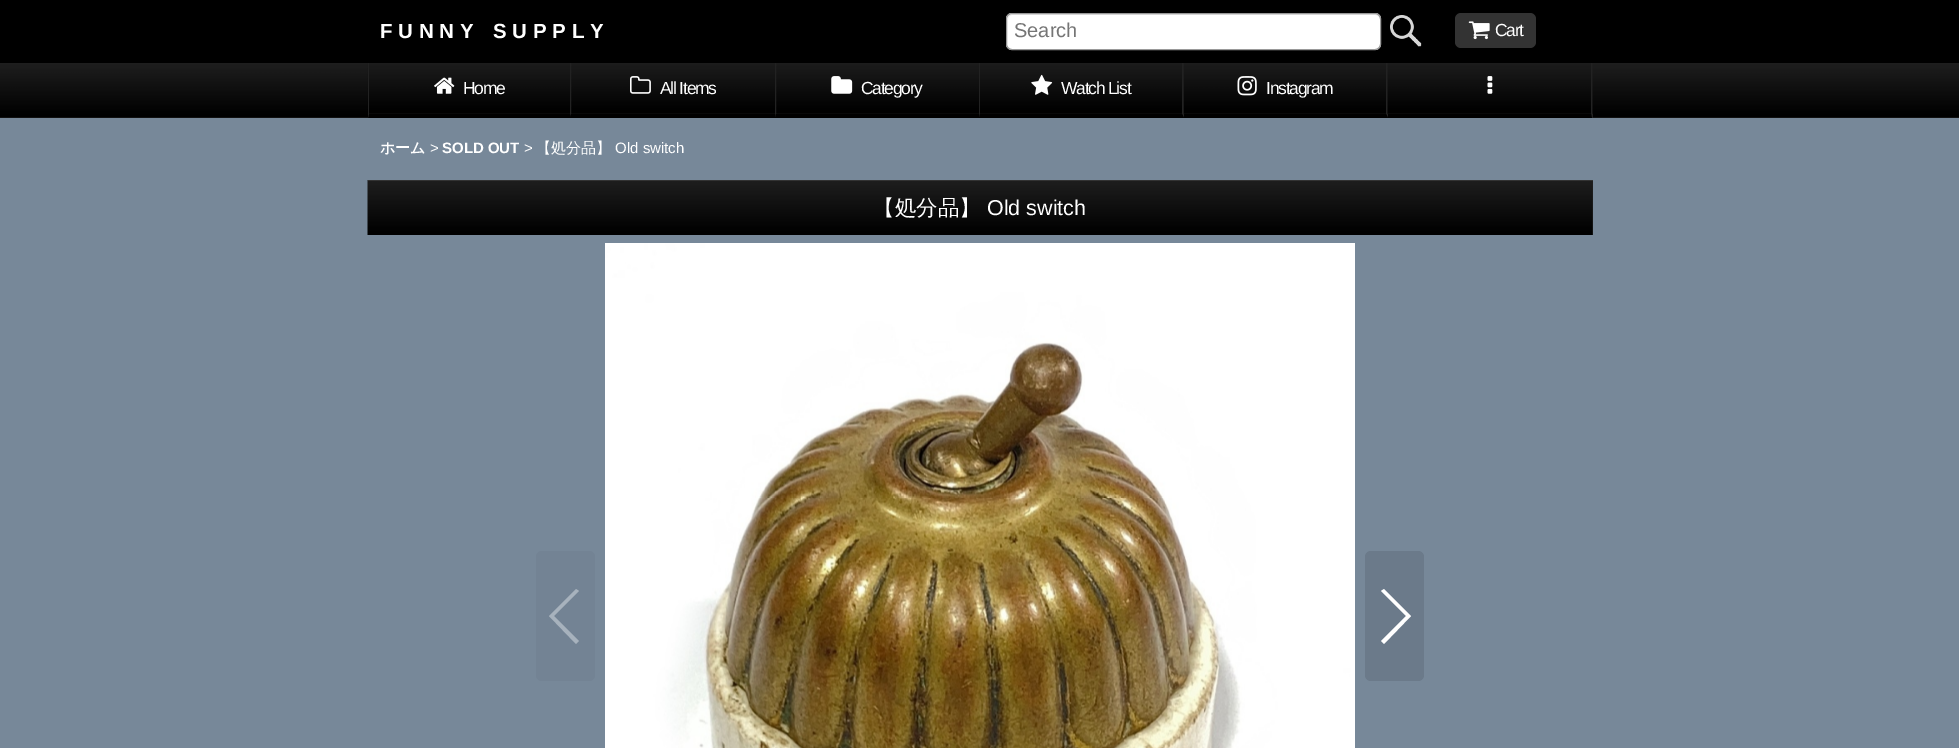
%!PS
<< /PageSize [1959 748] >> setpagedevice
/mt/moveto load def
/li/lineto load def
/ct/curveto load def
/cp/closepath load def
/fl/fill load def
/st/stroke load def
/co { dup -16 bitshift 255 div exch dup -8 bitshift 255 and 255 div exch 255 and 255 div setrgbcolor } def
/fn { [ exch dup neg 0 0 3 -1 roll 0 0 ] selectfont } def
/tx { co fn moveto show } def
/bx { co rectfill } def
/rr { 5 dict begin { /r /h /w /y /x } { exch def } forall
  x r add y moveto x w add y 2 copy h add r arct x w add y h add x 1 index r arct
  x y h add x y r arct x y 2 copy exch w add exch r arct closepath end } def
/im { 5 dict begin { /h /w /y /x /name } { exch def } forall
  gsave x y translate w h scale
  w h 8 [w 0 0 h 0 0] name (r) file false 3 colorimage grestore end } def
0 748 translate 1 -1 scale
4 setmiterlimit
0 0 1959 748 16#778899 bx
0 117 1959 1 16#222222 bx
(media/3.raw) 0 63 1959 55 im
571 62 mt 571 118 li 570 114 li 570 62 li cp fl
(media/4.raw) 367 63 203 51 im
16#000000 co
571 118 mt 368 118 li 369 114 li 570 114 li cp fl
16#222222 co
368 118 mt 368 62 li 369 62 li 369 114 li cp fl
571 63 409 55 16#222222 bx
776 62 mt 776 118 li 775 114 li 775 62 li cp fl
980 62 mt 980 118 li 979 114 li 979 62 li cp fl
1184 62 mt 1184 118 li 1182 114 li 1182 62 li cp fl
1388 62 mt 1388 118 li 1386 114 li 1386 62 li cp fl
1388 63 205 55 16#222222 bx
(media/14.raw) 1387 63 206 51 im
1592 62 mt 1592 118 li 1591 114 li 1591 62 li cp fl
0 0 1959 63 16#000000 bx
16#FFFFFF co
1006 13 375 37 6 rr fl
16#ECECEC co
1012 15 mt 1375 15 li 1378 15 1380 17 1380 20 ct 1380 19 li 1380 16 1378 14 1375 14 ct 1013 14 li 1010 14 1008 16 1008 19 ct 1008 20 li 1008 17 1010 15 1012 15 ct cp fl
16#999999 co
1006.5 13.5 374 36 5.5 rr st
(media/1.raw) 1390 15 32 32 im
16#333333 co
1455 13 81 35 6 rr fl
(media/2.raw) 1468 21 22 19 im
(media/5.raw) 434 77 21 17 im
(media/6.raw) 571 63 204 51 im
16#000000 co
776 118 mt 571 118 li 571 114 li 775 114 li cp fl
(media/7.raw) 630 76 21 18 im
(media/8.raw) 776 63 203 51 im
980 118 mt 776 118 li 776 114 li 979 114 li cp fl
(media/9.raw) 831 76 22 18 im
(media/10.raw) 980 63 202 51 im
1184 118 mt 980 118 li 980 114 li 1182 114 li cp fl
(media/11.raw) 1031 74 22 21 im
(media/12.raw) 1183 63 203 51 im
1388 118 mt 1184 118 li 1184 114 li 1386 114 li cp fl
(media/13.raw) 1237 76 20 20 im
1592 118 mt 1388 118 li 1388 114 li 1591 114 li cp fl
(media/15.raw) 1487 76 6 18 im
1592 181 1 54 16#222222 bx
(media/16.raw) 367 180 1226 55 im
368 180 1225 1 16#333333 bx
(media/17.raw) 605 243 750 505 im
16#738394 co
536 551 59 130 6 rr fl
16#A7B2BD co
549 616 mt 576 589 li 579 591 li 554 616 li 579 641 li 576 644 li cp fl
16#6B7A8A co
1365 551 59 130 6 rr fl
16#FFFFFF co
1411 616 mt 1384 644 li 1381 641 li 1406 616 li 1381 591 li 1384 589 li cp fl
(Search) 1014 37 /LiberationSans-Regular 20 16#757575 tx
(F U N N Y) 380 38 /LiberationSans-Bold 20.5 16#FFFFFF tx
(S U P P L Y) 493 38 /LiberationSans-Bold 20.5 16#FFFFFF tx
/LiberationSans-Regular 17.5 fn
1495 36 mt -1.25 0 (Cart) ashow
463 94 mt -1.25 0 (Home) ashow
660 94 mt -1.25 0 (All Items) ashow
861 94 mt -1.25 0 (Category) ashow
1061 94 mt -1.25 0 (Watch List) ashow
1266 94 mt -1.25 0 (Instagram) ashow
(ホーム) 380 153 /WenQuanYiZenHei-Bold 15 16#FFFFFF tx
(>) 430 153 /LiberationSans-Regular 15 16#FFFFFF tx
(SOLD OUT) 442 153 /LiberationSans-Bold 15 16#FFFFFF tx
(>) 524 153 /LiberationSans-Regular 15 16#FFFFFF tx
(【処分品】) 536 153 /WenQuanYiZenHei-Medium 15 16#FFFFFF tx
(Old switch) 615 153 /LiberationSans-Regular 15 16#FFFFFF tx
(【処分品】) 873 215 /WenQuanYiZenHei-Medium 21.5 16#FFFFFF tx
(Old switch) 987 215 /LiberationSans-Regular 21.5 16#FFFFFF tx
showpage
